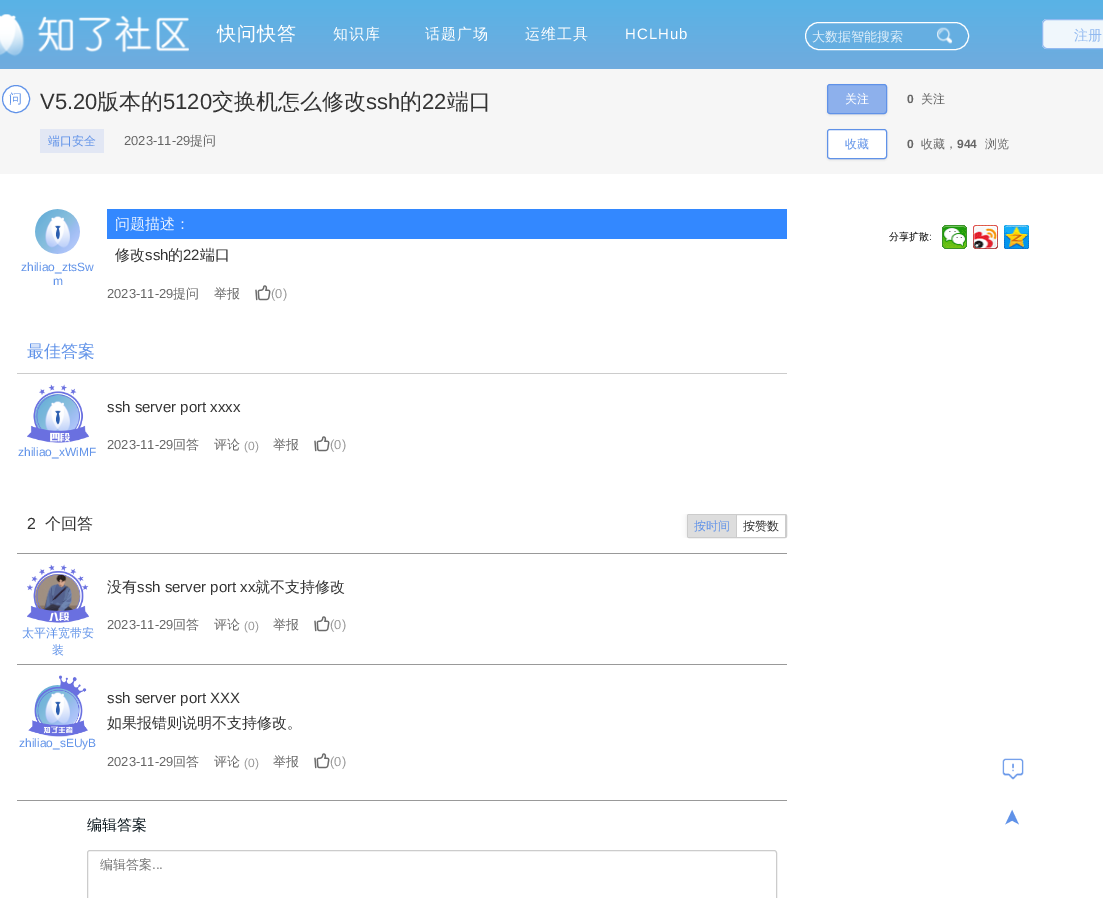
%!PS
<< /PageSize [1103 898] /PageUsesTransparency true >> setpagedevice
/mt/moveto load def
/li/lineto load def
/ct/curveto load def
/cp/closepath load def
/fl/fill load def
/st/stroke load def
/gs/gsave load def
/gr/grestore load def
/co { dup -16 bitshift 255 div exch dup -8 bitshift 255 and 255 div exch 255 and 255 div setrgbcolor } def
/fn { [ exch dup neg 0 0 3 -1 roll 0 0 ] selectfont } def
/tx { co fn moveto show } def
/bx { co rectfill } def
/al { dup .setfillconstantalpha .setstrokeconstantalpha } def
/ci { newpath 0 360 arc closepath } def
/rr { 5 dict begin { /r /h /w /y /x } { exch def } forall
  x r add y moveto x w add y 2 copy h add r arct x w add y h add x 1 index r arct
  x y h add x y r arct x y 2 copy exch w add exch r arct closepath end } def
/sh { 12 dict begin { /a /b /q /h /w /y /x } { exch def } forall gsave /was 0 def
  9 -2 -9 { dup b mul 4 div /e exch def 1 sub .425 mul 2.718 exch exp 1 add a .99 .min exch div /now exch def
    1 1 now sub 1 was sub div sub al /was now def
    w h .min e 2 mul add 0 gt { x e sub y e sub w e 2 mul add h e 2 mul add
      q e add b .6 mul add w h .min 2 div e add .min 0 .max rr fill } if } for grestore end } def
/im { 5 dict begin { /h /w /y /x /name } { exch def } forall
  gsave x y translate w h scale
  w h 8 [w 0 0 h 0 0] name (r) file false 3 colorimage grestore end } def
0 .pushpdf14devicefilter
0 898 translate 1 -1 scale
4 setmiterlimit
0 0 1103 898 16#FFFFFF bx
gs 0 0 mt 1103 0 li 1103 69 li 0 69 li cp clip newpath
<< /ShadingType 2 /ColorSpace /DeviceRGB /Coords [552 0 552 69] /Extend [true true] /Function << /FunctionType 2 /Domain [0 1] /C0 [.349 .702 .902] /C1 [.439 .671 .871] /N 1 >> >> shfill gr
(media/1.raw) 0 14 189 43 im
16#65AEE1 co
805.5 22.5 163 27 13.5 rr gs fl gr
16#FFFFFF co
st
(media/2.raw) 937 27 16 17 im
0.9 al
1042 19 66 30 5 rr fl
16#88B3EF co
1042.5 19.5 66 29 4.5 rr st
1 al
0 69 1103 105 16#F6F6F6 bx
16#FFFFFF co
16 99 13.5 ci gs fl gr
16#6092E8 co
st
40 129 64 24 16#E2E7F4 bx
gs
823 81 mt 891 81 li 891 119 li 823 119 li cp 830 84 mt 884 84 li 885.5 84 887 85.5 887 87 ct 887 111 li 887 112.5 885.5 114 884 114 ct 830 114 li 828.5 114 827 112.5 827 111 ct 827 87 li 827 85.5 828.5 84 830 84 ct cp eoclip newpath
16#000000 co
827 85 60 30 3 1 .1 sh
gr
0.7 al
16#6092E8 co
827.5 84.5 59 29 2.5 rr fl
1 al
827.5 84.5 59 29 2.5 rr st
16#000000 co
827 130 60 30 3 1 .1 sh
16#FFFFFF co
827.5 129.5 59 29 2.5 rr gs fl gr
16#6092E8 co
st
(media/3.raw) 35 209 45 45 im
107 209 680 30 16#3388FF bx
(media/4.raw) 255 285 16 16 im
17 373 770 1 16#CCCCCC bx
(media/6.raw) 35 394 45 37 im
(media/5.raw) 27 384 62 59 im
(media/4.raw) 314 436 16 16 im
17 553 770 1 16#999999 bx
gs
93 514 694 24 rectclip
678 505 mt 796 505 li 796 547 li 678 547 li cp 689 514 mt 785 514 li 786 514 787 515 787 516 ct 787 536 li 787 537 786 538 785 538 ct 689 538 li 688 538 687 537 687 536 ct 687 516 li 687 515 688 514 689 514 ct cp eoclip newpath
16#000000 co
687 514 100 24 2 2.5 .1 sh
gr
16#CCCCCC co
687.5 514.5 99 23 1.5 rr st
688 515 48 22 16#DDDDDD bx
736 515 1 22 16#CCCCCC bx
785 515 1 22 16#CCCCCC bx
17 664 770 1 16#999999 bx
(media/8.raw) 35 574 45 37 im
(media/7.raw) 27 564 62 59 im
(media/4.raw) 314 616 16 16 im
17 800 770 1 16#999999 bx
(media/10.raw) 35 685 45 41 im
(media/9.raw) 28 675 60 62 im
(media/4.raw) 314 753 16 16 im
16#CCCCCC co
87.5 850.5 689 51 2.5 rr st
(media/11.raw) 942 225 25 24 im
(media/12.raw) 973 225 25 24 im
(media/13.raw) 1004 225 25 24 im
(media/14.raw) 1002 758 22 22 im
/WenQuanYiZenHei-Medium 19 fn
16#FFFFFF co
217 40 mt 1 0 (快问快答) ashow
/WenQuanYiZenHei-Medium 15 fn
333 39 mt 1 0 (知识库) ashow
425 39 mt 1 0 (话题广场) ashow
525 39 mt 1 0 (运维工具) ashow
/LiberationSans-Regular 15 fn
625 39 mt 1 0 (HCLHub) ashow
(大数据智能搜索) 812 41 /WenQuanYiZenHei-Medium 13 16#DFEEF9 tx
(注册) 1074 40 /WenQuanYiZenHei-Medium 14 16#92BAF0 tx
(问) 9 103 /WenQuanYiZenHei-Medium 13 16#6092E8 tx
(V5.20) 40 109 /LiberationSans-Regular 22 16#333333 tx
(版本的) 97 109 /WenQuanYiZenHei-Medium 22 16#333333 tx
(5120) 163 109 /LiberationSans-Regular 22 16#333333 tx
(交换机怎么修改) 212 109 /WenQuanYiZenHei-Medium 22 16#333333 tx
(ssh) 366 109 /LiberationSans-Regular 22 16#333333 tx
(的) 400 109 /WenQuanYiZenHei-Medium 22 16#333333 tx
(22) 422 109 /LiberationSans-Regular 22 16#333333 tx
(端口) 447 109 /WenQuanYiZenHei-Medium 22 16#333333 tx
(端口安全) 48 145 /WenQuanYiZenHei-Medium 12 16#6092E8 tx
(2023-11-29) 124 145 /LiberationSans-Regular 13 16#666666 tx
(提问) 190 145 /WenQuanYiZenHei-Medium 13 16#666666 tx
(关注) 845 103 /WenQuanYiZenHei-Medium 12 16#FFFFFF tx
(0) 907 103 /LiberationSans-Bold 12 16#666666 tx
(关注) 921 103 /WenQuanYiZenHei-Medium 12 16#666666 tx
(收藏) 845 148 /WenQuanYiZenHei-Medium 12 16#6092E8 tx
(0) 907 148 /LiberationSans-Bold 12 16#666666 tx
(收藏，) 921 148 /WenQuanYiZenHei-Medium 12 16#666666 tx
(944) 957 148 /LiberationSans-Bold 12 16#666666 tx
(浏览) 985 148 /WenQuanYiZenHei-Medium 12 16#666666 tx
(zhiliao_ztsSw) 21 271 /LiberationSans-Regular 12 16#6092E8 tx
(m) 53 285 /LiberationSans-Regular 12 16#6092E8 tx
(问题描述：) 115 229 /WenQuanYiZenHei-Medium 15 16#EBF3FF tx
(修改) 115 260 /WenQuanYiZenHei-Medium 15 16#333333 tx
(ssh) 145 260 /LiberationSans-Regular 15 16#333333 tx
(的) 168 260 /WenQuanYiZenHei-Medium 15 16#333333 tx
(22) 183 260 /LiberationSans-Regular 15 16#333333 tx
(端口) 200 260 /WenQuanYiZenHei-Medium 15 16#333333 tx
(2023-11-29) 107 298 /LiberationSans-Regular 13 16#666666 tx
(提问) 173 298 /WenQuanYiZenHei-Medium 13 16#666666 tx
(举报) 214 298 /WenQuanYiZenHei-Medium 13 16#666666 tx
(\(0\)) 271 298 /LiberationSans-Regular 13 16#999999 tx
(最佳答案) 27 357 /WenQuanYiZenHei-Medium 17 16#6092E8 tx
(ssh server port xxxx) 107 412 /LiberationSans-Regular 15 16#333333 tx
(2023-11-29) 107 449 /LiberationSans-Regular 13 16#666666 tx
(回答) 173 449 /WenQuanYiZenHei-Medium 13 16#666666 tx
(评论) 214 449 /WenQuanYiZenHei-Medium 13 16#666666 tx
(\(0\)) 244 450 /LiberationSans-Regular 12 16#999999 tx
(举报) 273 449 /WenQuanYiZenHei-Medium 13 16#666666 tx
(\(0\)) 330 449 /LiberationSans-Regular 13 16#999999 tx
(zhiliao_xWiMF) 18 456 /LiberationSans-Regular 12 16#6092E8 tx
(2) 27 529 /LiberationSans-Regular 16 16#333333 tx
(个回答) 45 529 /WenQuanYiZenHei-Medium 16 16#333333 tx
(按时间) 694 530 /WenQuanYiZenHei-Medium 12 16#6092E8 tx
(按赞数) 743 530 /WenQuanYiZenHei-Medium 12 16#333333 tx
(没有) 107 592 /WenQuanYiZenHei-Medium 15 16#333333 tx
(ssh server port xx) 137 592 /LiberationSans-Regular 15 16#333333 tx
(就不支持修改) 255 592 /WenQuanYiZenHei-Medium 15 16#333333 tx
(2023-11-29) 107 629 /LiberationSans-Regular 13 16#666666 tx
(回答) 173 629 /WenQuanYiZenHei-Medium 13 16#666666 tx
(评论) 214 629 /WenQuanYiZenHei-Medium 13 16#666666 tx
(\(0\)) 244 630 /LiberationSans-Regular 12 16#999999 tx
(举报) 273 629 /WenQuanYiZenHei-Medium 13 16#666666 tx
(\(0\)) 330 629 /LiberationSans-Regular 13 16#999999 tx
(太平洋宽带安) 22 637 /WenQuanYiZenHei-Medium 12 16#6092E8 tx
(装) 52 654 /WenQuanYiZenHei-Medium 12 16#6092E8 tx
(ssh server port XXX) 107 703 /LiberationSans-Regular 15 16#333333 tx
(如果报错则说明不支持修改。) 107 728 /WenQuanYiZenHei-Medium 15 16#333333 tx
(2023-11-29) 107 766 /LiberationSans-Regular 13 16#666666 tx
(回答) 173 766 /WenQuanYiZenHei-Medium 13 16#666666 tx
(评论) 214 766 /WenQuanYiZenHei-Medium 13 16#666666 tx
(\(0\)) 244 767 /LiberationSans-Regular 12 16#999999 tx
(举报) 273 766 /WenQuanYiZenHei-Medium 13 16#666666 tx
(\(0\)) 330 766 /LiberationSans-Regular 13 16#999999 tx
(zhiliao_sEUyB) 19 747 /LiberationSans-Regular 12 16#6092E8 tx
(编辑答案) 87 830 /WenQuanYiZenHei-Medium 15 16#0A161D tx
(编辑答案) 100 869 /WenQuanYiZenHei-Medium 13 16#757575 tx
(...) 152 869 /LiberationSans-Regular 13 16#757575 tx
(分享扩散) 889 240 /WenQuanYiZenHei-Medium 10 16#000000 tx
(:) 929 240 /LiberationSans-Regular 10 16#000000 tx
/DejaVuSans-Regular 22 fn
16#6092E8 co
gs 1019 827 translate -90 rotate 0 0 mt (➤) show gr
.poppdf14devicefilter showpage
